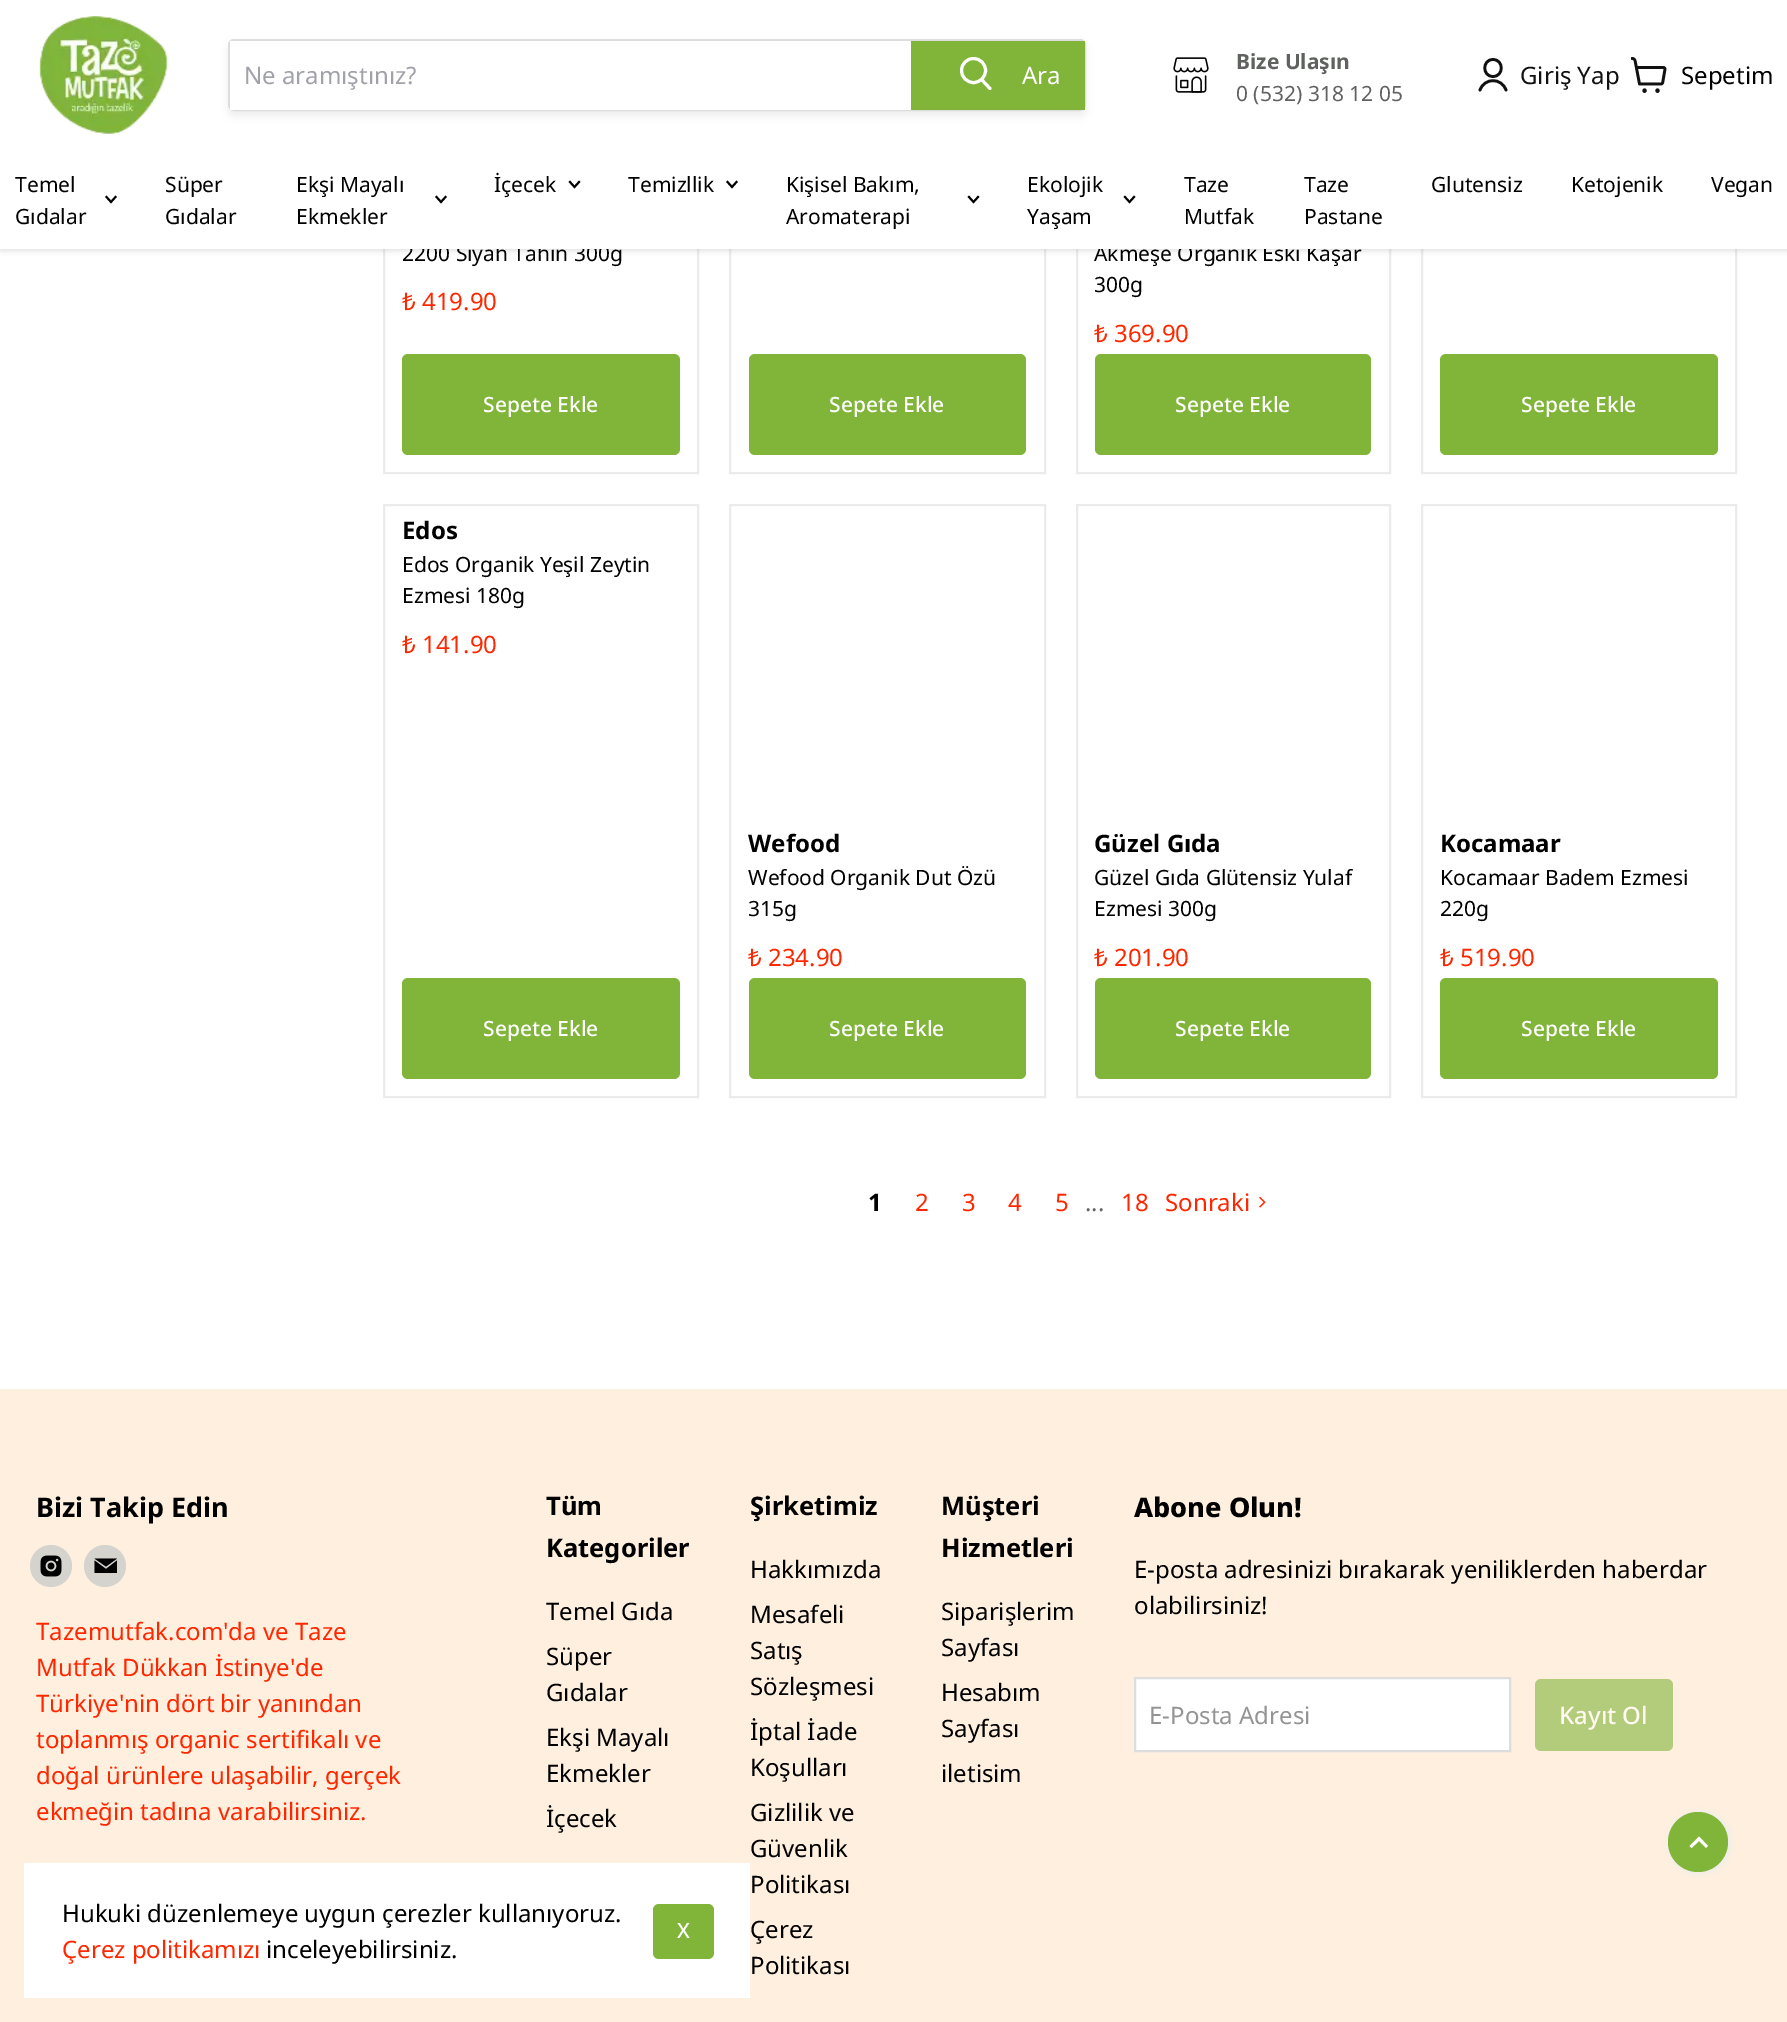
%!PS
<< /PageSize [1787 2022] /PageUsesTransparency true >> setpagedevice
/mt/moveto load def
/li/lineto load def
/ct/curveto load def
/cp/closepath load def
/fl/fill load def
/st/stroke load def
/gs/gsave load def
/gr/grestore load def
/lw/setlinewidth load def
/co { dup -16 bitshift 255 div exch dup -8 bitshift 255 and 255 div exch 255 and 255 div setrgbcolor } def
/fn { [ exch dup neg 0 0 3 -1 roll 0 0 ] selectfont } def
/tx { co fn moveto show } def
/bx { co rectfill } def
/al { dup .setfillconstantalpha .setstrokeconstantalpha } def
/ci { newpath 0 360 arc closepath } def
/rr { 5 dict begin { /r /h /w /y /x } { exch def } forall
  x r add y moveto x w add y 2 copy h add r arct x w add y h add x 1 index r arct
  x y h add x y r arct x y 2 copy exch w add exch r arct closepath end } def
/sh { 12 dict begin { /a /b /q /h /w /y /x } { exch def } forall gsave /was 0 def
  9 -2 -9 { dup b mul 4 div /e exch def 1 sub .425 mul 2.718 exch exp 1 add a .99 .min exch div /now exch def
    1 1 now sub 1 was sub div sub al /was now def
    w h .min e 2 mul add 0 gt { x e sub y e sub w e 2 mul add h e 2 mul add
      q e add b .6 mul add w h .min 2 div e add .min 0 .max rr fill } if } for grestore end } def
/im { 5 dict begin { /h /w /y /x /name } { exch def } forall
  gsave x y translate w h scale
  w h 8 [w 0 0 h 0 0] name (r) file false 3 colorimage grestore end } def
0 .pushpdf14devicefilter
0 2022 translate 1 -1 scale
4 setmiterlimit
0 0 1787 2022 16#FFFFFF bx
16#EBEBEB co
2 lw
384 -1 314 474 rectstroke
0.16 al
16#808080 co
730 -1 315 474 rectstroke
1077 -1 313 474 rectstroke
1 al
16#EBEBEB co
1422 -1 314 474 rectstroke
16#808080 co
0 2 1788 249 0 3 .25 sh
0 1389 1787 633 16#FFEFDE bx
16#EDEDED co
1668 1811 63 63 31.5 3 1 sh
16#80B539 co
1698 1842 30 ci fl
16#FFFFFF co
1691.5 1848 mt 1699 1841 li 1706 1848 li 1708 1846 li 1699 1836.5 li 1689.5 1846 li cp fl
24 1863 726 135 16#FFFFFF bx
16#80B539 co
653 1904 61 55 6 rr fl
402 354 278 101 6 rr fl
749 354 277 101 6 rr fl
1095 354 276 101 6 rr fl
1440 354 278 101 6 rr fl
16#EBEBEB co
384 505 314 592 rectstroke
16#80B539 co
402 978 278 101 6 rr fl
0.16 al
16#808080 co
730 505 315 592 rectstroke
1 al
16#80B539 co
749 978 277 101 6 rr fl
0.16 al
16#808080 co
1077 505 313 592 rectstroke
1 al
16#80B539 co
1095 978 276 101 6 rr fl
16#EBEBEB co
1422 505 314 592 rectstroke
16#80B539 co
1440 978 278 101 6 rr fl
(media/4.raw) 1259 1196 7 12 im
16#D4D3CE co
51 1566 21 ci fl
(media/5.raw) 40 1555 22 22 im
105 1566 21 ci fl
16#000000 co
117 1558.5 mt 94.5 1558.5 li 106 1566.5 li cp 106 1569 mt 94.5 1560.5 li 94.5 1573 li 117 1573 li 117 1560.5 li cp eofill
16#FFFFFF co
1135 1678 mt 1510 1678 li 1510 1751 li 1135 1751 li cp gs fl gr
16#DDDDDD co
st
16#B3CC7B co
1535 1679 138 72 6 rr fl
(Hukuki düzenlemeye uygun çerezler kullanıyoruz.) 62 1922 /NotoSans-Regular 24 16#000000 tx
(Çerez politikamızı) 62 1958 /NotoSans-Regular 24 16#FF2700 tx
(inceleyebilirsiniz.) 266 1958 /NotoSans-Regular 24 16#000000 tx
(X) 677 1938 /NotoSans-Medium 21 16#FFFFFF tx
(2200 Siyah Tahin 300g) 402 261 /NotoSans-Regular 21 16#000000 tx
(₺ 419.90) 402 310 /NotoSans-Regular 24 16#FF2700 tx
(Sepete Ekle) 483 412 /NotoSans-Medium 21 16#FFFFFF tx
(Sepete Ekle) 829 412 /NotoSans-Medium 21 16#FFFFFF tx
(Akmeşe Organik Eski Kaşar) 1094 261 /NotoSans-Regular 21 16#000000 tx
0 0 1787 249 16#FFFFFF bx
(Vegan) 1711 192 /NotoSans-Regular 21 16#000000 tx
(Ketojenik) 1571 192 /NotoSans-Regular 21 16#000000 tx
(Glutensiz) 1431 192 /NotoSans-Regular 21 16#000000 tx
(Pastane) 1304 224 /NotoSans-Regular 21 16#000000 tx
(Taze) 1304 192 /NotoSans-Regular 21 16#000000 tx
(Mutfak) 1184 224 /NotoSans-Regular 21 16#000000 tx
(Taze) 1184 192 /NotoSans-Regular 21 16#000000 tx
1.9 lw
2 setlinecap
1129.5 202 mt 1134 197 li 1129.5 202 mt 1125 197 li st
(Yaşam) 1027 224 /NotoSans-Regular 21 16#000000 tx
(Ekolojik) 1027 192 /NotoSans-Regular 21 16#000000 tx
973.5 202 mt 978 197 li 973.5 202 mt 969 197 li st
(Aromaterapi) 786 224 /NotoSans-Regular 21 16#000000 tx
(Kişisel Bakım,) 786 192 /NotoSans-Regular 21 16#000000 tx
732 187 mt 736.5 182 li 732 187 mt 727.5 182 li st
(Temizllik) 628 192 /NotoSans-Regular 21 16#000000 tx
574.5 187 mt 579 182 li 574.5 187 mt 570 182 li st
(İçecek) 494 192 /NotoSans-Regular 21 16#000000 tx
441 202 mt 445.5 197 li 441 202 mt 436.5 197 li st
(Ekmekler) 296 224 /NotoSans-Regular 21 16#000000 tx
(Ekşi Mayalı) 296 192 /NotoSans-Regular 21 16#000000 tx
(Gıdalar) 165 224 /NotoSans-Regular 21 16#000000 tx
(Süper) 165 192 /NotoSans-Regular 21 16#000000 tx
111 202 mt 115.5 197 li 111 202 mt 106.5 197 li st
(Gıdalar) 15 224 /NotoSans-Regular 21 16#000000 tx
(Temel) 15 192 /NotoSans-Regular 21 16#000000 tx
(media/3.raw) 1631 57 36 36 im
(Sepetim) 1681 84 /NotoSans-Regular 24 16#000000 tx
(media/2.raw) 1173 57 36 36 im
16#808080 co
228 44 858 72 6 5 .16 sh
16#DDDDDD co
2 lw
0 setlinecap
229 40 856 70 5 rr st
911 41 174 69 16#80B539 bx
16#FFFFFF co
3 lw
1 setlinecap
990 88.5 mt 982 80 li st
0 setlinecap
973.5 70.5 12 ci st
(Ara) 1022 84 /NotoSans-Regular 24 16#FFFFFF tx
230 41 681 69 16#FFFFFF bx
(Ne aramıştınız?) 244 84 /NotoSans-Regular 24 16#A1A1AA tx
(media/1.raw) 39 16 129 118 im
16#111111 co
2.7 lw
1 setlinecap
1 setlinejoin
1493 76.5 mt 1504 76.5 1504 59.5 1493 59.5 ct 1482 59.5 1482 76.5 1493 76.5 ct cp 1506 90 mt 1501.5 77.5 1484.5 77.5 1480 90 ct st
(Giriş Yap) 1520 84 /NotoSans-Regular 24 16#111111 tx
(0 \(532\) 318 12 05) 1236 101 /NotoSans-Regular 21 16#606260 tx
(Bize Ulaşın) 1236 69 /NotoSans-Bold 21 16#606260 tx
(300g) 1094 292 /NotoSans-Regular 21 16#000000 tx
(₺ 369.90) 1094 342 /NotoSans-Regular 24 16#FF2700 tx
(Sepete Ekle) 1175 412 /NotoSans-Medium 21 16#FFFFFF tx
(Sepete Ekle) 1521 412 /NotoSans-Medium 21 16#FFFFFF tx
(Edos) 402 539 /NotoSans-Bold 24 16#000000 tx
(Edos Organik Yeşil Zeytin) 402 572 /NotoSans-Regular 21 16#000000 tx
(Ezmesi 180g) 402 603 /NotoSans-Regular 21 16#000000 tx
(₺ 141.90) 402 653 /NotoSans-Regular 24 16#FF2700 tx
(Sepete Ekle) 483 1036 /NotoSans-Medium 21 16#FFFFFF tx
(Wefood) 748 852 /NotoSans-Bold 24 16#000000 tx
(Wefood Organik Dut Özü) 748 885 /NotoSans-Regular 21 16#000000 tx
(315g) 748 916 /NotoSans-Regular 21 16#000000 tx
(₺ 234.90) 748 966 /NotoSans-Regular 24 16#FF2700 tx
(Sepete Ekle) 829 1036 /NotoSans-Medium 21 16#FFFFFF tx
(Güzel Gıda) 1094 852 /NotoSans-Bold 24 16#000000 tx
(Güzel Gıda Glütensiz Yulaf) 1094 885 /NotoSans-Regular 21 16#000000 tx
(Ezmesi 300g) 1094 916 /NotoSans-Regular 21 16#000000 tx
(₺ 201.90) 1094 966 /NotoSans-Regular 24 16#FF2700 tx
(Sepete Ekle) 1175 1036 /NotoSans-Medium 21 16#FFFFFF tx
(Kocamaar) 1440 852 /NotoSans-Bold 24 16#000000 tx
(Kocamaar Badem Ezmesi) 1440 885 /NotoSans-Regular 21 16#000000 tx
(220g) 1440 916 /NotoSans-Regular 21 16#000000 tx
(₺ 519.90) 1440 966 /NotoSans-Regular 24 16#FF2700 tx
(Sepete Ekle) 1521 1036 /NotoSans-Medium 21 16#FFFFFF tx
(1) 868 1211 /NotoSans-Bold 24 16#000000 tx
(2) 915 1211 /NotoSans-Regular 24 16#FF2700 tx
(3) 962 1211 /NotoSans-Regular 24 16#FF2700 tx
(4) 1008 1211 /NotoSans-Regular 24 16#FF2700 tx
(5) 1055 1211 /NotoSans-Regular 24 16#FF2700 tx
(...) 1085 1211 /NotoSans-Regular 24 16#666666 tx
(18) 1121 1211 /NotoSans-Regular 24 16#FF2700 tx
(Sonraki) 1165 1211 /NotoSans-Regular 24 16#FF2700 tx
(Bizi Takip Edin) 36 1517 /NotoSans-Bold 27 16#000000 tx
(Tazemutfak.com'da ve Taze) 36 1640 /NotoSans-Regular 24 16#FF2700 tx
(Mutfak Dükkan İstinye'de) 36 1676 /NotoSans-Regular 24 16#FF2700 tx
(Türkiye'nin dört bir yanından) 36 1712 /NotoSans-Regular 24 16#FF2700 tx
(toplanmış organic sertifikalı ve) 36 1748 /NotoSans-Regular 24 16#FF2700 tx
(doğal ürünlere ulaşabilir, gerçek) 36 1784 /NotoSans-Regular 24 16#FF2700 tx
(ekmeğin tadına varabilirsiniz.) 36 1820 /NotoSans-Regular 24 16#FF2700 tx
(Tüm) 546 1515 /NotoSans-Bold 25.5 16#000000 tx
(Kategoriler) 546 1557 /NotoSans-Bold 25.5 16#000000 tx
(Temel Gıda) 546 1620 /NotoSans-Regular 24 16#000000 tx
(Süper) 546 1665 /NotoSans-Regular 24 16#000000 tx
(Gıdalar) 546 1701 /NotoSans-Regular 24 16#000000 tx
(Ekşi Mayalı) 546 1746 /NotoSans-Regular 24 16#000000 tx
(Ekmekler) 546 1782 /NotoSans-Regular 24 16#000000 tx
(İçecek) 546 1827 /NotoSans-Regular 24 16#000000 tx
(Şirketimiz) 750 1515 /NotoSans-Bold 25.5 16#000000 tx
(Hakkımızda) 750 1578 /NotoSans-Regular 24 16#000000 tx
(Mesafeli) 750 1623 /NotoSans-Regular 24 16#000000 tx
(Satış) 750 1659 /NotoSans-Regular 24 16#000000 tx
(Sözleşmesi) 750 1695 /NotoSans-Regular 24 16#000000 tx
(İptal İade) 750 1740 /NotoSans-Regular 24 16#000000 tx
(Koşulları) 750 1776 /NotoSans-Regular 24 16#000000 tx
(Gizlilik ve) 750 1821 /NotoSans-Regular 24 16#000000 tx
(Güvenlik) 750 1857 /NotoSans-Regular 24 16#000000 tx
(Politikası) 750 1893 /NotoSans-Regular 24 16#000000 tx
(Çerez) 750 1938 /NotoSans-Regular 24 16#000000 tx
(Politikası) 750 1974 /NotoSans-Regular 24 16#000000 tx
(Müşteri) 941 1515 /NotoSans-Bold 25.5 16#000000 tx
(Hizmetleri) 941 1557 /NotoSans-Bold 25.5 16#000000 tx
(Siparişlerim) 941 1620 /NotoSans-Regular 24 16#000000 tx
(Sayfası) 941 1656 /NotoSans-Regular 24 16#000000 tx
(Hesabım) 941 1701 /NotoSans-Regular 24 16#000000 tx
(Sayfası) 941 1737 /NotoSans-Regular 24 16#000000 tx
(iletisim) 941 1782 /NotoSans-Regular 24 16#000000 tx
(Abone Olun!) 1134 1517 /NotoSans-ExtraBold 27 16#000000 tx
(E-posta adresinizi bırakarak yeniliklerden haberdar) 1134 1578 /NotoSans-Regular 24 16#000000 tx
(olabilirsiniz!) 1134 1614 /NotoSans-Regular 24 16#000000 tx
(E-Posta Adresi) 1149 1724 /NotoSans-Regular 24 16#949494 tx
(Kayıt Ol) 1559 1724 /NotoSans-Medium 24 16#FFF9F2 tx
.poppdf14devicefilter showpage
